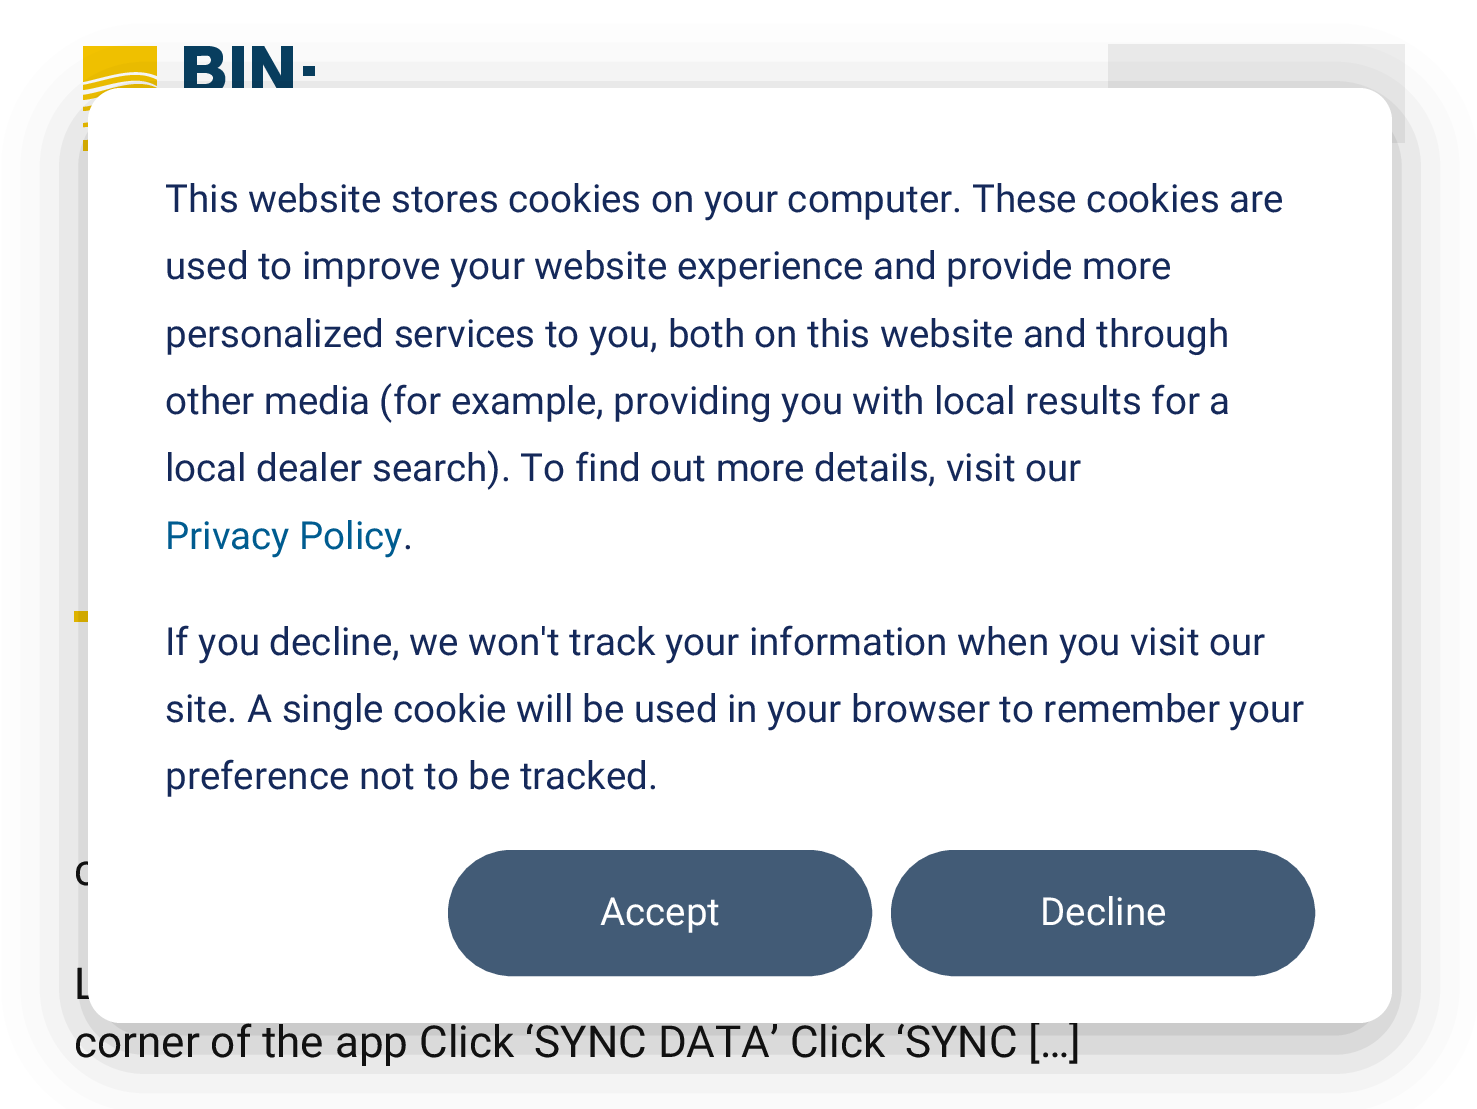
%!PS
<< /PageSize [1477 1109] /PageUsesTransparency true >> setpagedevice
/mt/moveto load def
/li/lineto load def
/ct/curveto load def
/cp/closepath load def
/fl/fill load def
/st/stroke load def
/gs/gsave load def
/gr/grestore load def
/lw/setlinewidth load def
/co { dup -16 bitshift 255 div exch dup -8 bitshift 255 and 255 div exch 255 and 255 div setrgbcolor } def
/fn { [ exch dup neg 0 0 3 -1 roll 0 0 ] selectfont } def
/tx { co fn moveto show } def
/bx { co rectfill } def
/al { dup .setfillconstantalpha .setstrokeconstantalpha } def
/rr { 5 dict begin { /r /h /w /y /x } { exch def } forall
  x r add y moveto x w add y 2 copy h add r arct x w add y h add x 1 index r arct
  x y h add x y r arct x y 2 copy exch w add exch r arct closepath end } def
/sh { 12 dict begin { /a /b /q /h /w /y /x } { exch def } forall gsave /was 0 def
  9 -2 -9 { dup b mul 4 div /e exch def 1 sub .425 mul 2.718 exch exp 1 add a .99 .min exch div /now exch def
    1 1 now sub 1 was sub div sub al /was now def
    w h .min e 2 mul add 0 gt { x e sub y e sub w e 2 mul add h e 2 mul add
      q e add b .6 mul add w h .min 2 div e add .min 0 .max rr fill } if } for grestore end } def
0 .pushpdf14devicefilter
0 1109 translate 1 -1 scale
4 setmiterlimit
0 0 1477 1109 16#FFFFFF bx
16#F4C400 co
83 95 mt 83 100 li 106 98 136 80 157 95 ct 157 88 li 135 77 106 92 83 95 ct cp fl
83 85 mt 83 90 li 106 87 136 73 157 86 ct 157 80 li 135 68 106 81 83 85 ct cp fl
157 107 mt 157 99 li 135 86 106 105 83 107 ct 83 111 li 107 110 136 90 157 107 ct cp fl
157 123 mt 157 114 li 143 105 125 111 109 117 ct 99 120 90 123 83 123 ct 83 127 li 107 128 136 103 157 123 ct cp fl
83 140 mt 83 151 li 157 151 li 157 136 li 138 110 106 142 83 140 ct cp fl
83 46 mt 83 82 li 107 77 134 66 157 76 ct 157 46 li cp fl
16#083F61 co
184 46 mt 184 94 li 193 94 209 95 217 92 ct 227 88 229 71 217 68 ct 221 66 223 62 223 58 ct 223 48 214 46 206 46 ct cp 197 65 mt 197 56 li 200 56 206 55 209 56 ct 213 59 211 65 206 65 ct cp 197 84 mt 197 73 li 201 73 206 72 210 74 ct 216 76 213 84 206 84 ct cp eofill
232 46 12 42 16#083F61 bx
252 46 mt 252 94 li 263 94 li 263 64 li 280 94 li 293 94 li 293 46 li 281 46 li 281 76 li 264 46 li cp fl
303 66 12 10 16#083F61 bx
1108 44 297 99 16#EEEEEE bx
74 611 14 11 16#F3C300 bx
16#000000 co
88 110 1304 935 33 38.5 .28 sh
(c) 74 885 /Roboto-Regular 44 16#111111 tx
(L) 74 999 /Roboto-Regular 44 16#111111 tx
(corner of the app Click ‘SYNC DATA’ Click ‘SYNC […]) 74 1057 /Roboto-Regular 44 16#111111 tx
16#FFFFFF co
88 88 1304 935 33 rr fl
16#425B76 co
892.5 851.5 421 123 61.5 rr gs fl gr
3 lw
st
(Decline) 1040 925 /Roboto-Regular 38.5 16#FFFFFF tx
16#425B76 co
449.5 851.5 421 123 61.5 rr gs fl gr
st
(Accept) 600 925 /Roboto-Regular 38.5 16#FFFFFF tx
(preference not to be tracked.) 165 789 /Roboto-Regular 38.5 16#15295A tx
(site. A single cookie will be used in your browser to remember your) 165 722 /Roboto-Regular 38.5 16#15295A tx
(If you decline, we won't track your information when you visit our) 165 655 /Roboto-Regular 38.5 16#15295A tx
(.) 403 549 /Roboto-Regular 38.5 16#15295A tx
(Privacy Policy) 165 549 /Roboto-Regular 38.5 16#005C90 tx
(local dealer search\). To find out more details, visit our) 165 481 /Roboto-Regular 38.5 16#15295A tx
(other media \(for example, providing you with local results for a) 165 414 /Roboto-Regular 38.5 16#15295A tx
(personalized services to you, both on this website and through) 165 347 /Roboto-Regular 38.5 16#15295A tx
(used to improve your website experience and provide more) 165 279 /Roboto-Regular 38.5 16#15295A tx
(This website stores cookies on your computer. These cookies are) 165 212 /Roboto-Regular 38.5 16#15295A tx
.poppdf14devicefilter showpage
